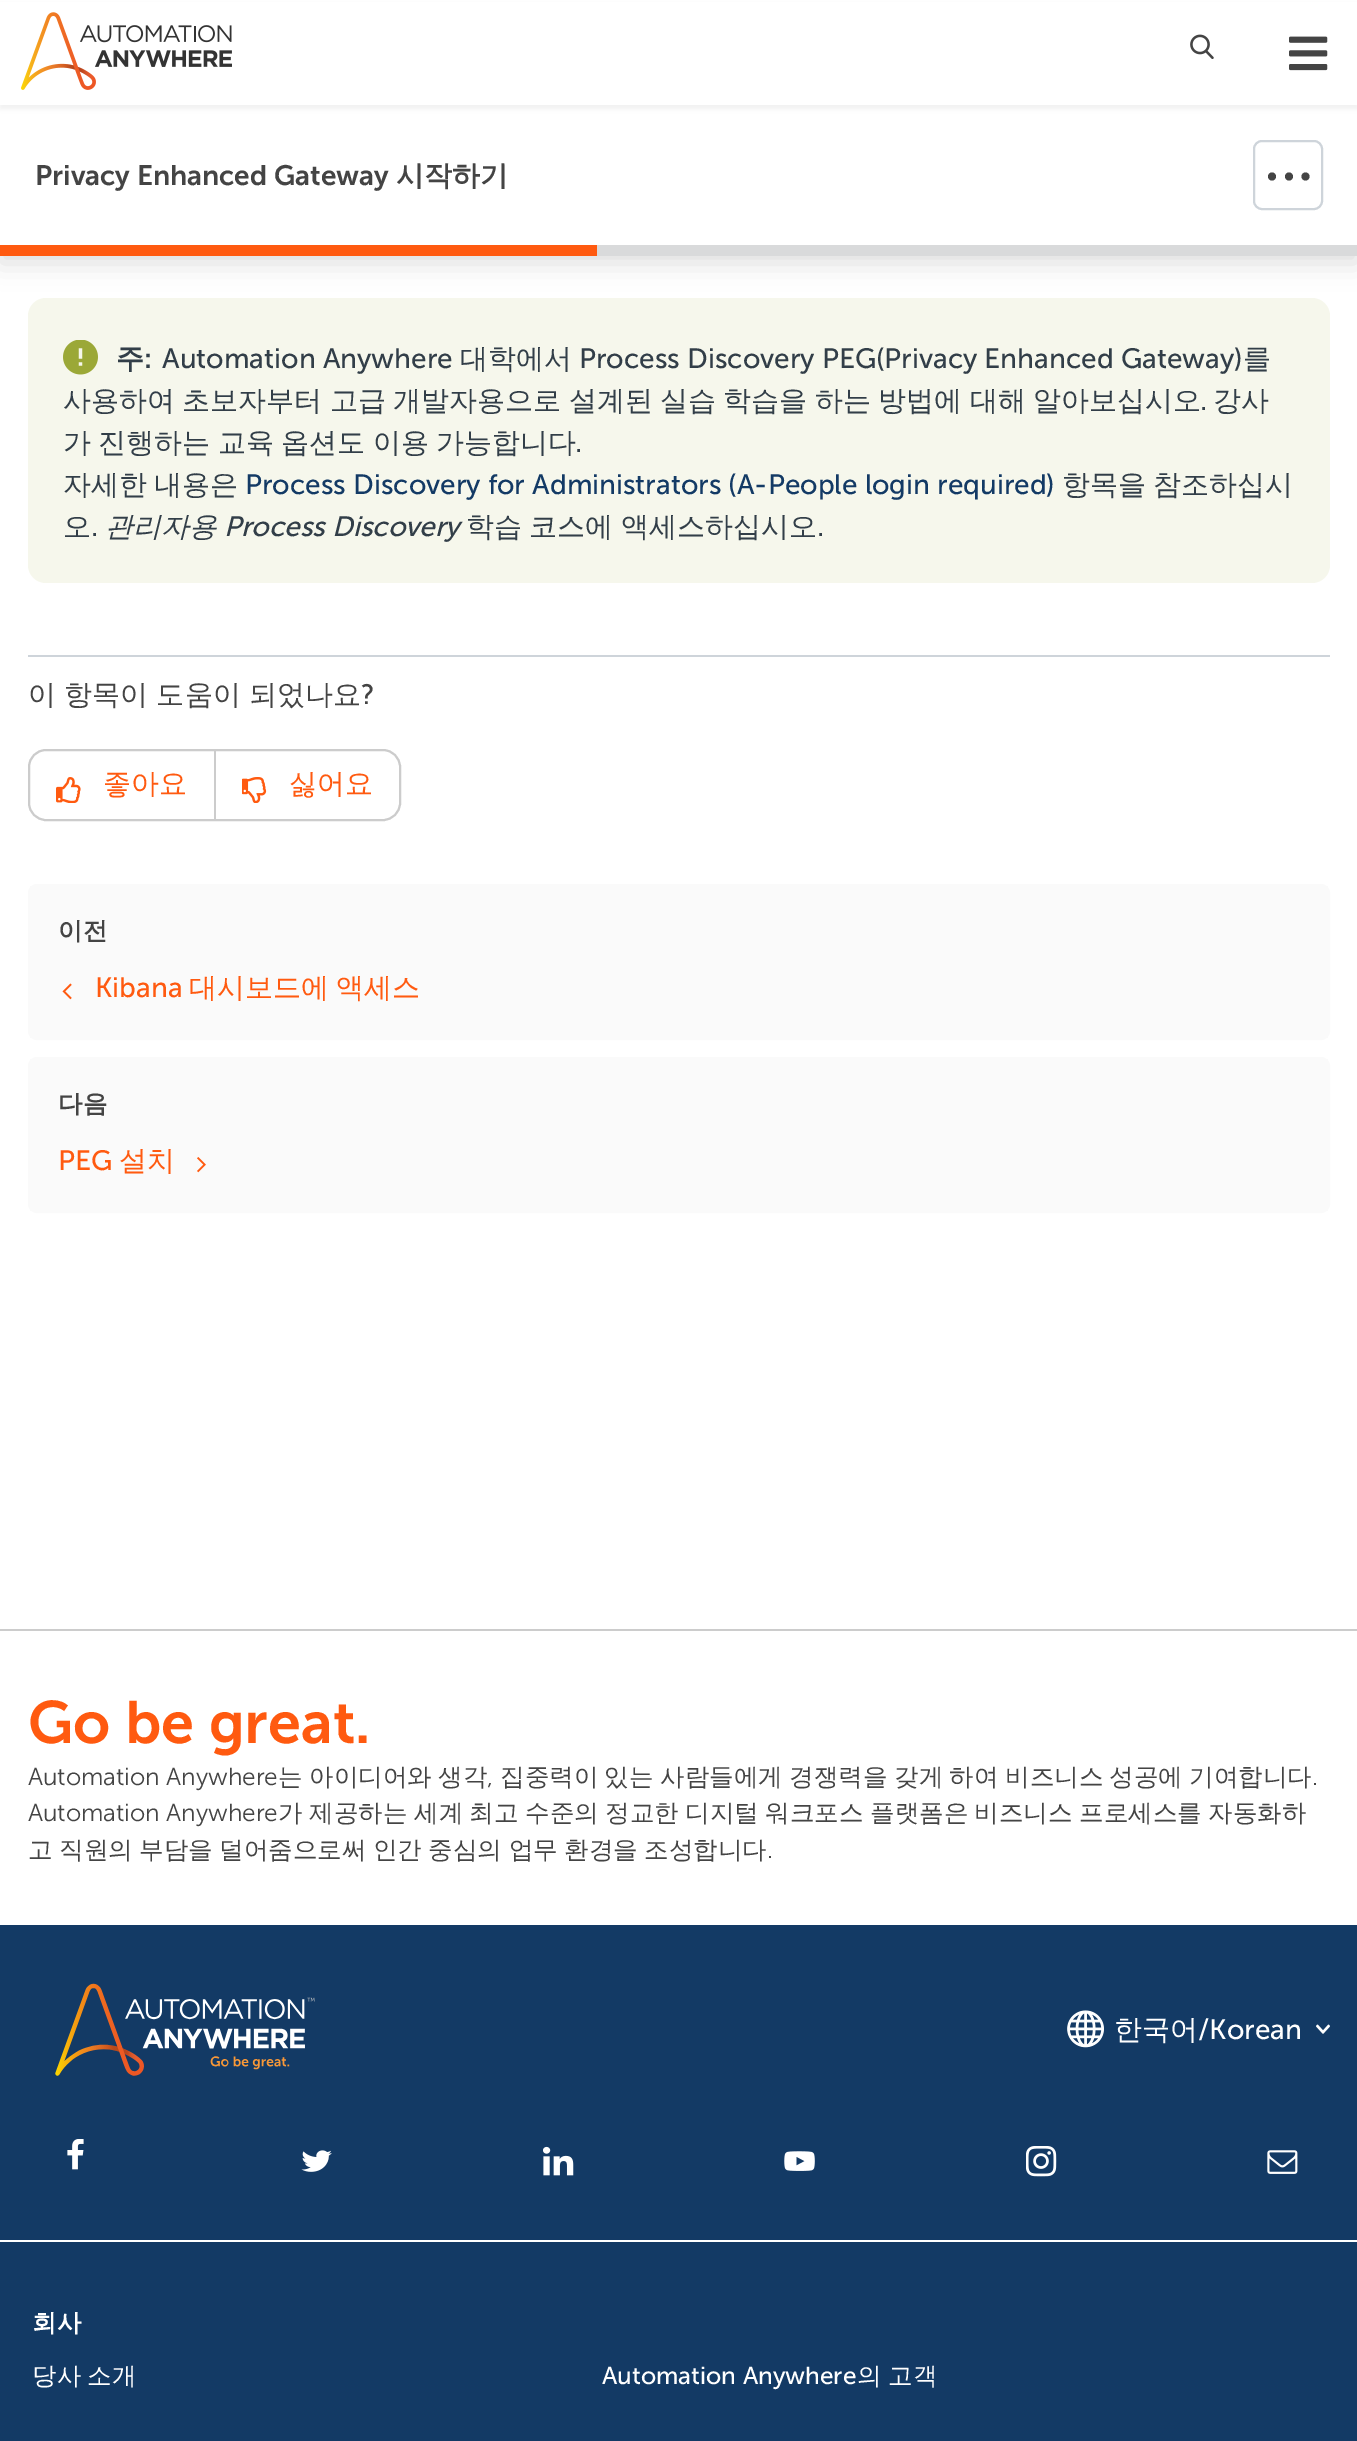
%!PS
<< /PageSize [1357 2441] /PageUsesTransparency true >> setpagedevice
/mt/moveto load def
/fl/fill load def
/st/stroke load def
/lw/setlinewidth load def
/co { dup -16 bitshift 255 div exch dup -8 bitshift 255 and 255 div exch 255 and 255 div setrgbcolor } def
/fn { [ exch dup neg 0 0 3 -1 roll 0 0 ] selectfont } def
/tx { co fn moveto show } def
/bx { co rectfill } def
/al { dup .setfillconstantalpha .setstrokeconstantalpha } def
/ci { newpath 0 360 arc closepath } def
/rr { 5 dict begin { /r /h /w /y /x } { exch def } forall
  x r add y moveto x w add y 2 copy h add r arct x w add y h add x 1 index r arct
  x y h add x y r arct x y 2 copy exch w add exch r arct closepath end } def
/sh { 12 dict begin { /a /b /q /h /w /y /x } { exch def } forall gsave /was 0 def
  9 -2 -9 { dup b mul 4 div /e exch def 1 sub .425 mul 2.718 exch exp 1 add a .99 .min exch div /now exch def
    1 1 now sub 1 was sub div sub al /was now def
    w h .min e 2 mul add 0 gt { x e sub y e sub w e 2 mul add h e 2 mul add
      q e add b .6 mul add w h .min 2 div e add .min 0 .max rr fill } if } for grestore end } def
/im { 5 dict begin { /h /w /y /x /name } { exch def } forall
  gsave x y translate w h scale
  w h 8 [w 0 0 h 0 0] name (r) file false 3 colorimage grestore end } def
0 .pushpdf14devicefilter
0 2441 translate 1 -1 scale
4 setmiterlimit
0 0 1357 2441 16#FFFFFF bx
16#F6F7EC co
28 298 1302 285 18 rr fl
16#8C8C8C co
0 123 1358 140 0 13 .3 sh
0 105 1357 140 16#FFFFFF bx
16#000000 co
0 4 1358 105 0 2.5 .05 sh
0 2 1357 103 16#FFFFFF bx
(media/1.raw) 21 12 211 78 im
(media/2.raw) 1190 34 24 25 im
(media/3.raw) 1289 36 39 35 im
16#CED4DA co
2 lw
1254 141 68 68 8 rr st
16#444444 co
1272 176.5 4 ci fl
1289 176.5 4 ci fl
1305.5 176.5 4 ci fl
0 245 597 11 16#FF5A10 bx
597 245 760 11 16#D9DADB bx
(media/4.raw) 63 340 35 35 im
28 655 1302 2 16#CED4DA bx
16#CCCCCC co
29 750 371 70 17 rr st
214 751 2 68 16#CCCCCC bx
(media/5.raw) 56 777 25 26 im
(media/6.raw) 242 777 25 26 im
16#FAFAFA co
29 885 1300 154 8 rr st
30 886 1298 152 16#FAFAFA bx
(media/7.raw) 62 983 10 17 im
29 1058 1300 154 8 rr st
30 1059 1298 152 16#FAFAFA bx
(media/8.raw) 197 1157 9 16 im
0 1925 1357 516 16#133A65 bx
0 1629 1357 2 16#CCCCCC bx
0 2240 1357 2 16#FFFFFF bx
(media/9.raw) 55 1983 260 93 im
(media/10.raw) 1067 2010 37 38 im
(media/11.raw) 1316 2024 14 10 im
(media/12.raw) 67 2139 17 31 im
(media/13.raw) 301 2150 31 22 im
(media/14.raw) 543 2146 31 30 im
(media/15.raw) 784 2151 31 20 im
(media/16.raw) 1026 2146 31 31 im
(media/17.raw) 1267 2150 31 24 im
(Privacy Enhanced Gateway) 35 185 /MuseoSans-SemiBold 28 16#444444 tx
(시작하기) 396 185 /WenQuanYiZenHei-Bold 28 16#444444 tx
(주) 116 368 /WenQuanYiZenHei-Bold 28 16#323E48 tx
(:) 144 368 /MuseoSans-SemiBold 28 16#323E48 tx
(Automation Anywhere) 162 368 /MuseoSans-Regular 28 16#323E48 tx
(대학에서) 460 368 /WenQuanYiZenHei-Medium 28 16#323E48 tx
(Process Discovery PEG\(Privacy Enhanced Gateway\)) 579 368 /MuseoSans-Regular 28 16#323E48 tx
(를) 1243 368 /WenQuanYiZenHei-Medium 28 16#323E48 tx
63 410 mt -1 0 32 (사용하여 초보자부터 고급 개발자용으로 설계된 실습 학습을 하는 방법에 대해 알아보십시오) widthshow
(.) 1200 410 /MuseoSans-Regular 28 16#323E48 tx
(강사) 1213 410 /WenQuanYiZenHei-Medium 28 16#323E48 tx
63 452 mt -1 0 32 (가 진행하는 교육 옵션도 이용 가능합니다) widthshow
(.) 575 452 /MuseoSans-Regular 28 16#323E48 tx
/WenQuanYiZenHei-Medium 28 fn
63 494 mt -1 0 32 (자세한 내용은) widthshow
(Process Discovery for Administrators \(A-People login required\)) 245 494 /MuseoSans-Regular 28 16#133A65 tx
/WenQuanYiZenHei-Medium 28 fn
16#323E48 co
1062 494 mt -1 0 32 (항목을 참조하십시) widthshow
(오) 63 536 /WenQuanYiZenHei-Medium 28 16#323E48 tx
(.) 91 536 /MuseoSans-Regular 28 16#323E48 tx
(관리자용) 105 536 /WenQuanYiZenHei-MediumItalic 28 16#323E48 tx
(Process Discovery) 224 536 /MuseoSans-Italic 28 16#323E48 tx
/WenQuanYiZenHei-Medium 28 fn
466 536 mt -1 0 32 (학습 코스에 액세스하십시오) widthshow
(.) 817 536 /MuseoSans-Regular 28 16#323E48 tx
/WenQuanYiZenHei-Medium 28 fn
16#444444 co
28 704 mt -1 0 32 .25 0 (이 항목이 도움이 되었나요) awidthshow
/MuseoSans-Regular 28 fn
361 704 mt .25 0 (?) ashow
(좋아요) 103 793 /WenQuanYiZenHei-Medium 28 16#FF5A10 tx
(싫어요) 289 793 /WenQuanYiZenHei-Medium 28 16#FF5A10 tx
(이전) 58 939 /WenQuanYiZenHei-Bold 24.5 16#444444 tx
(Kibana) 95 997 /MuseoSans-Regular 28 16#FF5A10 tx
/WenQuanYiZenHei-Medium 28 fn
189 997 mt -1 0 32 (대시보드에 액세스) widthshow
(다음) 58 1112 /WenQuanYiZenHei-Bold 24.5 16#444444 tx
(PEG) 58 1170 /MuseoSans-Regular 28 16#FF5A10 tx
(설치) 119 1170 /WenQuanYiZenHei-Medium 28 16#FF5A10 tx
(Go be great.) 28 1743 /MuseoSans-SemiBold 59.5 16#FF5A10 tx
(Automation Anywhere) 28 1785 /MuseoSans-Light 24.5 16#444444 tx
(는) 278 1785 /WenQuanYiZenHei-Medium 24.5 16#444444 tx
(아이디어와) 309 1785 /WenQuanYiZenHei-Medium 24.5 16#444444 tx
(생각) 438 1785 /WenQuanYiZenHei-Medium 24.5 16#444444 tx
(,) 487 1785 /MuseoSans-Light 24.5 16#444444 tx
(집중력이) 500 1785 /WenQuanYiZenHei-Medium 24.5 16#444444 tx
(있는) 604 1785 /WenQuanYiZenHei-Medium 24.5 16#444444 tx
(사람들에게) 660 1785 /WenQuanYiZenHei-Medium 24.5 16#444444 tx
(경쟁력을) 789 1785 /WenQuanYiZenHei-Medium 24.5 16#444444 tx
(갖게) 894 1785 /WenQuanYiZenHei-Medium 24.5 16#444444 tx
(하여) 949 1785 /WenQuanYiZenHei-Medium 24.5 16#444444 tx
(비즈니스) 1005 1785 /WenQuanYiZenHei-Medium 24.5 16#444444 tx
(성공에) 1109 1785 /WenQuanYiZenHei-Medium 24.5 16#444444 tx
(기여합니다) 1189 1785 /WenQuanYiZenHei-Medium 24.5 16#444444 tx
(.) 1312 1785 /MuseoSans-Light 24.5 16#444444 tx
(Automation Anywhere) 28 1821 /MuseoSans-Light 24.5 16#444444 tx
(가) 278 1821 /WenQuanYiZenHei-Medium 24.5 16#444444 tx
(제공하는) 309 1821 /WenQuanYiZenHei-Medium 24.5 16#444444 tx
(세계) 414 1821 /WenQuanYiZenHei-Medium 24.5 16#444444 tx
(최고) 469 1821 /WenQuanYiZenHei-Medium 24.5 16#444444 tx
(수준의) 525 1821 /WenQuanYiZenHei-Medium 24.5 16#444444 tx
(정교한) 605 1821 /WenQuanYiZenHei-Medium 24.5 16#444444 tx
(디지털) 685 1821 /WenQuanYiZenHei-Medium 24.5 16#444444 tx
(워크포스) 765 1821 /WenQuanYiZenHei-Medium 24.5 16#444444 tx
(플랫폼은) 870 1821 /WenQuanYiZenHei-Medium 24.5 16#444444 tx
(비즈니스) 974 1821 /WenQuanYiZenHei-Medium 24.5 16#444444 tx
(프로세스를) 1079 1821 /WenQuanYiZenHei-Medium 24.5 16#444444 tx
(자동화하) 1208 1821 /WenQuanYiZenHei-Medium 24.5 16#444444 tx
28 1858 mt -.75 0 32 (고 직원의 부담을 덜어줌으로써 인간 중심의 업무 환경을 조성합니다) widthshow
(.) 767 1858 /MuseoSans-Light 24.5 16#444444 tx
(한국어) 1114 2039 /WenQuanYiZenHei-Medium 28 16#FFFFFF tx
(/Korean) 1198 2039 /MuseoSans-Regular 28 16#FFFFFF tx
(회사) 32 2331 /WenQuanYiZenHei-Bold 24.5 16#FFFFFF tx
/WenQuanYiZenHei-Medium 24.5 fn
32 2384 mt -1 0 32 (당사 소개) widthshow
(Automation Anywhere) 602 2384 /MuseoSans-Regular 24.5 16#FFFFFF tx
(의) 857 2384 /WenQuanYiZenHei-Medium 24.5 16#FFFFFF tx
(고객) 888 2384 /WenQuanYiZenHei-Medium 24.5 16#FFFFFF tx
.poppdf14devicefilter showpage
